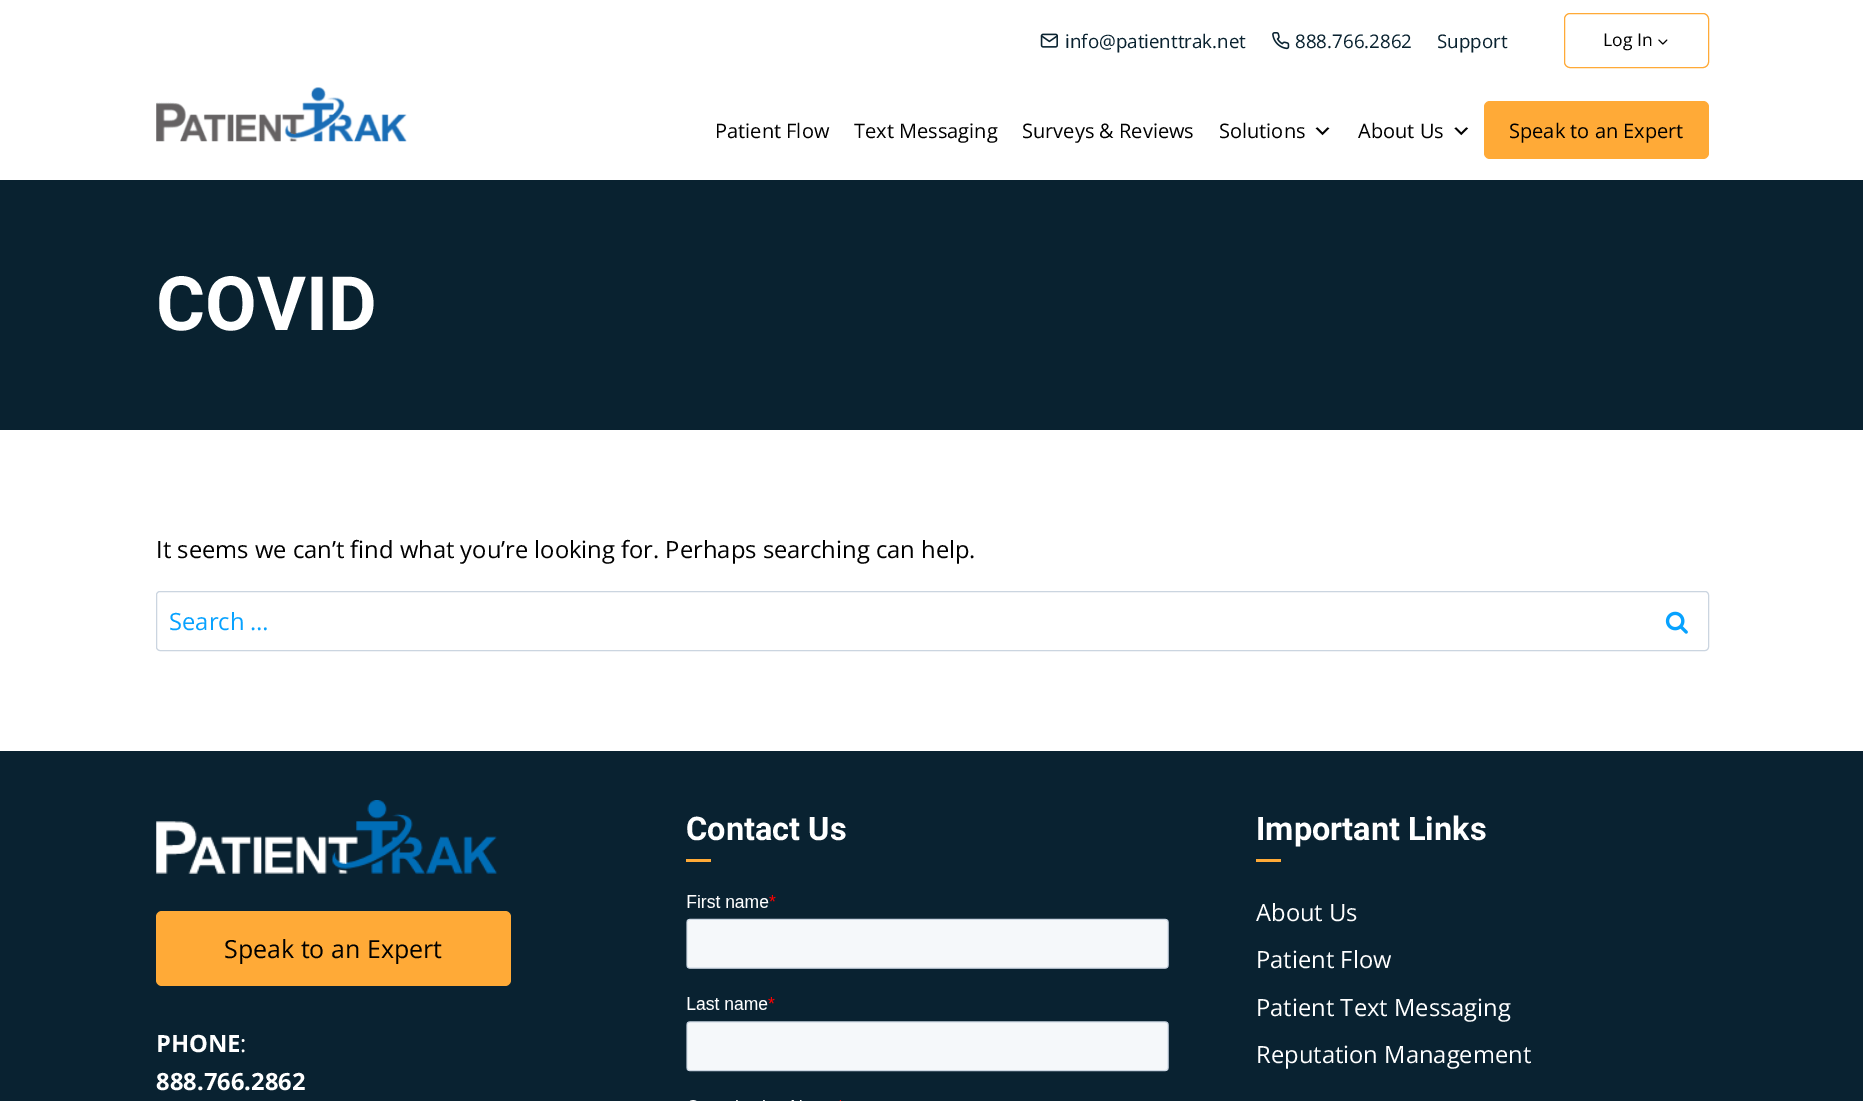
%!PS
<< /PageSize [1863 1101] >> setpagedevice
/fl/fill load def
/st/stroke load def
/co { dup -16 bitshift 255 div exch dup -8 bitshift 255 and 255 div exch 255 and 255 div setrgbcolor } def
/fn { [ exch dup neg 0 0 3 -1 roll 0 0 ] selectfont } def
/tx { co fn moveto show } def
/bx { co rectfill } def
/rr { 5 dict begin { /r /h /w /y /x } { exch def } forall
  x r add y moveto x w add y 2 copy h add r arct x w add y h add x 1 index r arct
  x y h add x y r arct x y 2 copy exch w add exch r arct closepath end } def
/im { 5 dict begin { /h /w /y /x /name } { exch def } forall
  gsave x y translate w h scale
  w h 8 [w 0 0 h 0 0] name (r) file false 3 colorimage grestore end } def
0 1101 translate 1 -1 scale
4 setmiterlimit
0 0 1863 1101 16#FFFFFF bx
(media/1.raw) 1040 33 18 15 im
(media/2.raw) 1272 32 18 18 im
16#FFAA37 co
1564.5 13.5 144 54 5.5 rr st
(media/3.raw) 1658 39 10 6 im
(media/4.raw) 156 87 251 55 im
(media/5.raw) 1315 127 15 9 im
(media/6.raw) 1454 127 15 9 im
1484 101 225 58 6 rr fl
0 180 1863 250 16#092230 bx
16#CBD5E0 co
156.5 591.5 1552 59 3.5 rr st
(media/7.raw) 1665 611 23 23 im
0 751 1863 350 16#092231 bx
686 859 25 3 16#FFAA37 bx
(media/8.raw) 686 895 483 206 im
1256 859 25 3 16#FFAA37 bx
(media/9.raw) 156 800 342 74 im
156 911 355 75 6 rr fl
(info@patienttrak.net) 1065 48 /OpenSans-Regular 18.75 16#092230 tx
(888.766.2862) 1295 48 /OpenSans-Regular 18.75 16#092230 tx
(Support) 1437 48 /OpenSans-Regular 18.75 16#092230 tx
(Log In) 1603 46 /OpenSans-Regular 17.5 16#000000 tx
(Patient Flow) 715 138 /OpenSans-Regular 20 16#000000 tx
(Text Messaging) 854 138 /OpenSans-Regular 20 16#000000 tx
(Surveys & Reviews) 1022 138 /OpenSans-Regular 20 16#000000 tx
(Solutions) 1219 138 /OpenSans-Regular 20 16#000000 tx
(About Us) 1358 138 /OpenSans-Regular 20 16#000000 tx
(Speak to an Expert) 1509 138 /OpenSans-Regular 20 16#000000 tx
(COVID) 156 330 /Roboto-Bold 75 16#FFFFFF tx
(It seems we can’t find what you’re looking for. Perhaps searching can help.) 156 558 /OpenSans-Regular 23.75 16#000000 tx
(Search …) 169 630 /OpenSans-Regular 23.75 16#07A2FF tx
(Contact Us) 686 840 /Roboto-Bold 32.5 16#FFFFFF tx
(Important Links) 1256 840 /Roboto-Bold 32.5 16#FFFFFF tx
(About Us) 1256 921 /OpenSans-Regular 23.75 16#FFFFFF tx
(Patient Flow) 1256 968 /OpenSans-Regular 23.75 16#FFFFFF tx
(Patient Text Messaging) 1256 1016 /OpenSans-Regular 23.75 16#FFFFFF tx
(Reputation Management) 1256 1063 /OpenSans-Regular 23.75 16#FFFFFF tx
(Speak to an Expert) 224 958 /OpenSans-Regular 25 16#000000 tx
(PHONE) 156 1052 /OpenSans-Bold 23.75 16#FFFFFF tx
(:) 240 1052 /OpenSans-Regular 23.75 16#FFFFFF tx
(888.766.2862) 156 1090 /OpenSans-Bold 23.75 16#FFFFFF tx
showpage
